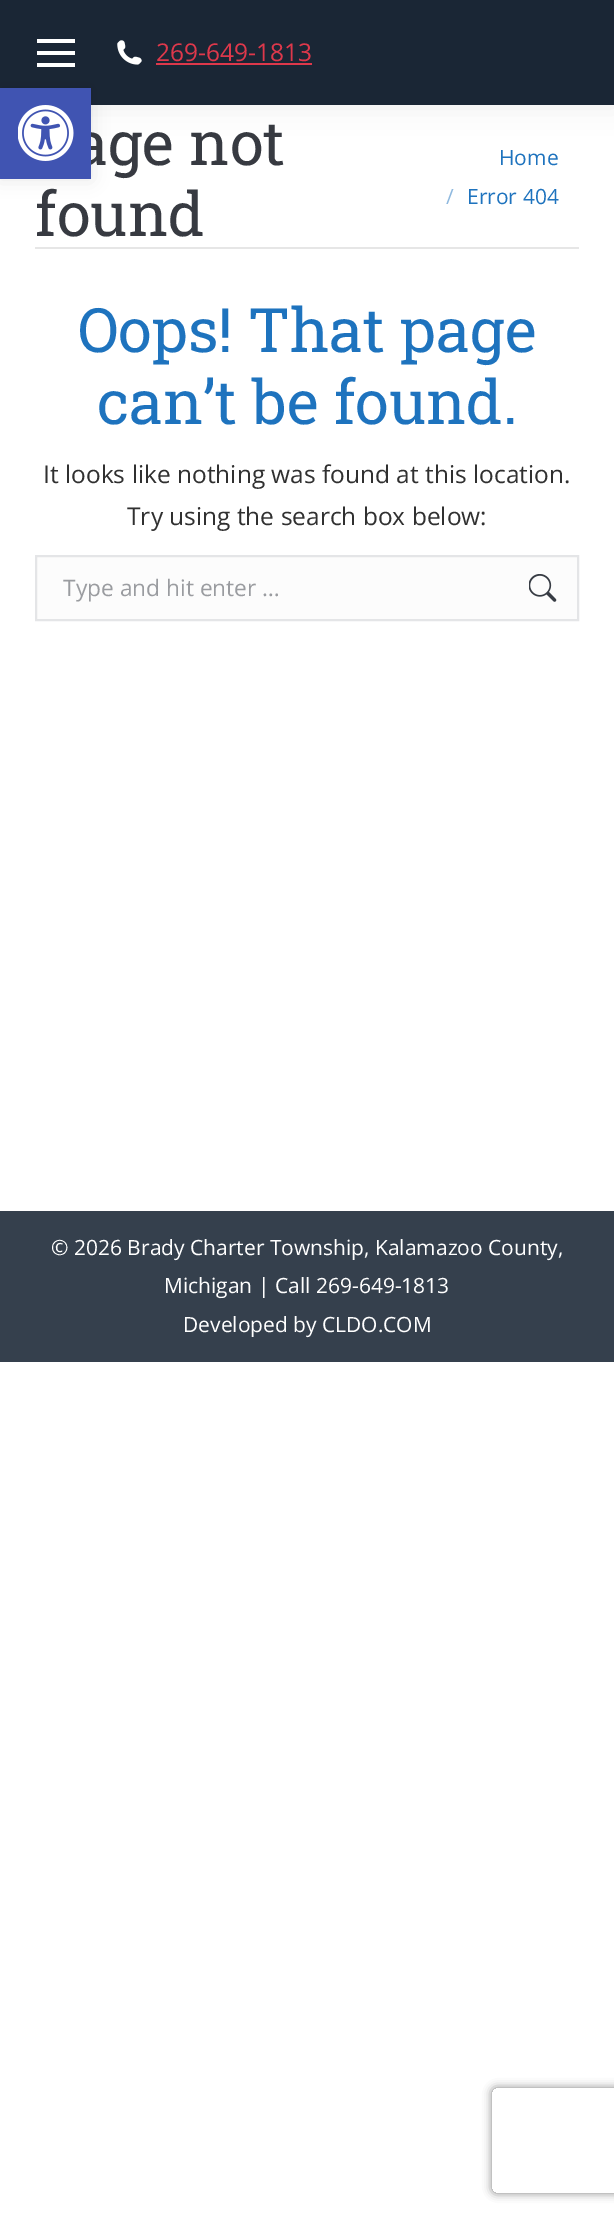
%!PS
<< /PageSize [614 2217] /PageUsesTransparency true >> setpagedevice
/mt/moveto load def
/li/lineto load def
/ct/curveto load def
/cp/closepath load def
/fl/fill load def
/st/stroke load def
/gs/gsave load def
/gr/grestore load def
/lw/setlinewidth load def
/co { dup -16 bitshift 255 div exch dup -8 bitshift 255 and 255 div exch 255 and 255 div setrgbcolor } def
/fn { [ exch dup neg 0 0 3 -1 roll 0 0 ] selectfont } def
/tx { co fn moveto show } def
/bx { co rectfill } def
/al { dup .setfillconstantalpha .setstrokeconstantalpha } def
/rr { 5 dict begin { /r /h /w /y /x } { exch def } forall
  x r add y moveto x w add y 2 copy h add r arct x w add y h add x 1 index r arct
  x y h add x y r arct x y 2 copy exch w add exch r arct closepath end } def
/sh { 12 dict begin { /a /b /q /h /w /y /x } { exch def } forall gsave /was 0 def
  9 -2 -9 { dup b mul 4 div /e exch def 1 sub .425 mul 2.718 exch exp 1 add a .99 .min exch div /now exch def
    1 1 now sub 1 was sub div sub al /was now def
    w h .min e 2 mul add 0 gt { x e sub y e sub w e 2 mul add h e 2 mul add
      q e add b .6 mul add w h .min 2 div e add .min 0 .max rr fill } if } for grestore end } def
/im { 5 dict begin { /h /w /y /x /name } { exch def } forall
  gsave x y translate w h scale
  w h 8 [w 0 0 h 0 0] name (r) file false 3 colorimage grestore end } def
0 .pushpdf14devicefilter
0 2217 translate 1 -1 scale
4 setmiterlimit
0 0 614 2217 16#FFFFFF bx
16#000000 co
-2 -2 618 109 0 13 .07 sh
0 0 614 105 16#1A2635 bx
37 39 38 4 16#FFFFFF bx
37 51 38 4 16#FFFFFF bx
37 63 38 4 16#FFFFFF bx
(media/1.raw) 117 40 25 25 im
156 63 156 2 16#DE384B bx
35 247 544 2 16#E6E6E6 bx
16#FCFCFC co
36 556 mt 578 556 li 578 620 li 36 620 li cp gs fl gr
16#E4E5E7 co
2 lw
st
(media/2.raw) 529 574 28 28 im
0 1211 614 151 16#35404D bx
16#000000 co
0 88 91 91 0 9 .1 sh
gs
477 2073 mt 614 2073 li 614 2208 li 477 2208 li cp 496 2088 mt 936 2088 li 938 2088 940 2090 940 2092 ct 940 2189 li 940 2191 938 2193 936 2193 ct 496 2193 li 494 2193 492 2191 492 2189 ct 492 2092 li 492 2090 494 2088 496 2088 ct cp eoclip newpath
16#808080 co
492 2088 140 105 4 4.5 1 sh
gr
(269-649-1813) 156 61 /OpenSans-Regular 24.5 16#DE384B tx
(age not) 74 165 /RobotoSlab-Regular 61.25 16#373A41 tx
(found) 35 236 /RobotoSlab-Regular 61.25 16#373A41 tx
(Home) 499 165 /OpenSans-Regular 21 16#1E73BE tx
(/) 446 204 /OpenSans-Regular 21 16#8FB9DF tx
(Error 404) 467 204 /OpenSans-Regular 21 16#1E73BE tx
(Oops! That page) 78 352 /RobotoSlab-Regular 61.25 16#1E73BE tx
(can’t be found.) 97 424 /RobotoSlab-Regular 61.25 16#1E73BE tx
(It looks like nothing was found at this location.) 43 483 /OpenSans-Regular 24.5 16#303030 tx
(Try using the search box below:) 127 525 /OpenSans-Regular 24.5 16#303030 tx
(Type and hit enter …) 63 596 /OpenSans-Regular 22.75 16#9A9CA0 tx
(© 2026 Brady Charter Township, Kalamazoo County,) 51 1255 /OpenSans-Regular 21 16#FFFFFF tx
(Michigan | Call 269-649-1813) 164 1293 /OpenSans-Regular 21 16#FFFFFF tx
(Developed by CLDO.COM) 183 1332 /OpenSans-Regular 21 16#FFFFFF tx
0 88 91 91 16#4054B2 bx
(media/3.raw) 18 105 56 56 im
.poppdf14devicefilter showpage
